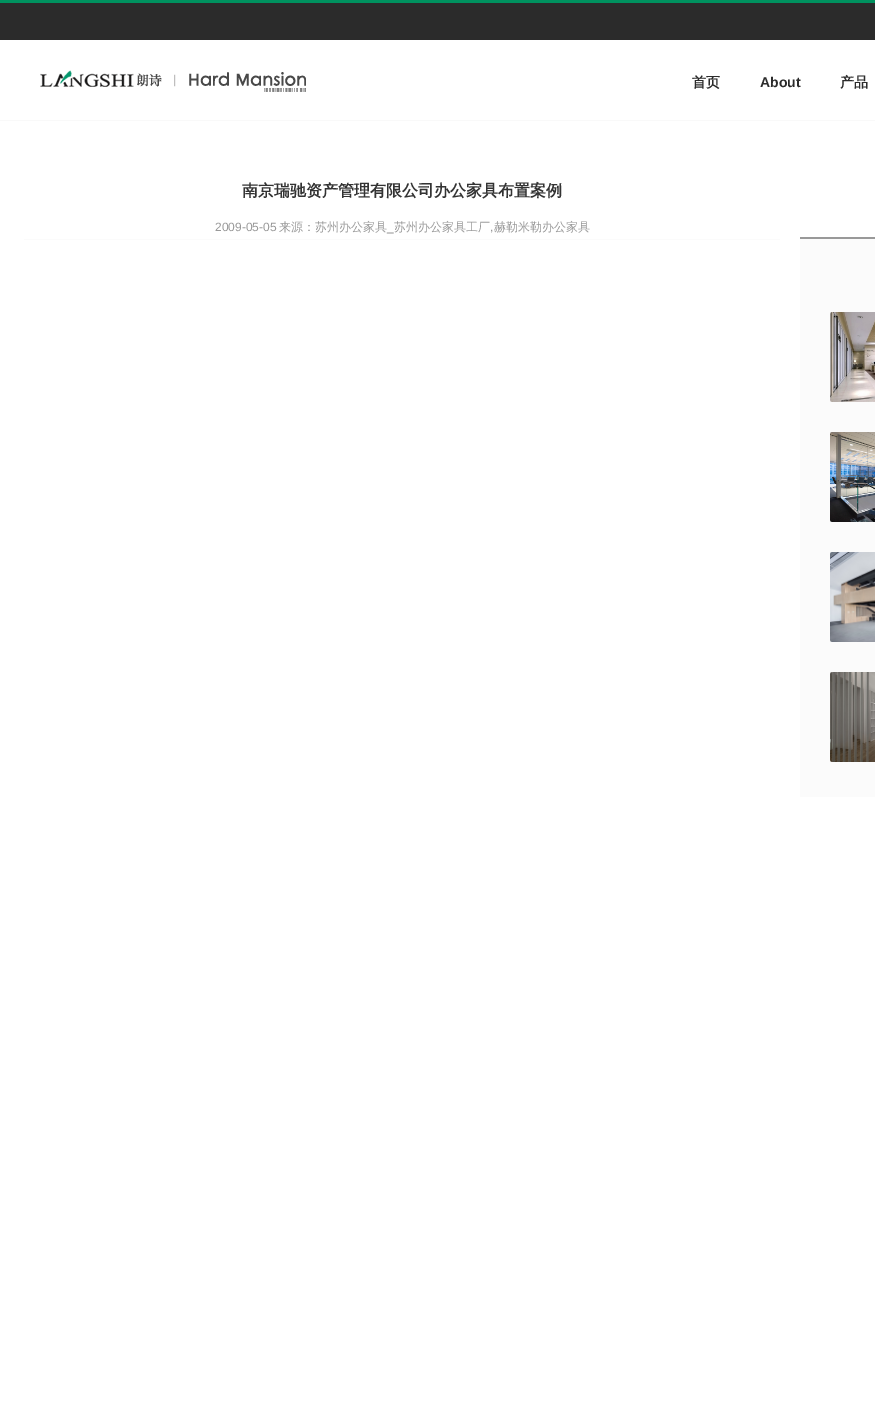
%!PS
<< /PageSize [875 1415] >> setpagedevice
/co { dup -16 bitshift 255 div exch dup -8 bitshift 255 and 255 div exch 255 and 255 div setrgbcolor } def
/fn { [ exch dup neg 0 0 3 -1 roll 0 0 ] selectfont } def
/tx { co fn moveto show } def
/bx { co rectfill } def
/im { 5 dict begin { /h /w /y /x /name } { exch def } forall
  gsave x y translate w h scale
  w h 8 [w 0 0 h 0 0] name (r) file false 3 colorimage grestore end } def
0 1415 translate 1 -1 scale
4 setmiterlimit
0 0 875 1415 16#FFFFFF bx
0 3 875 37 16#2B2B2B bx
0 0 875 3 16#00925F bx
(media/1.raw) 40 70 266 22 im
0 120 875 1 16#F9F9F9 bx
24 239 756 1 16#FBFBFB bx
800 239 75 558 16#FBFBFB bx
800 237 75 2 16#999999 bx
(media/2.raw) 830 312 45 90 im
(media/3.raw) 830 432 45 90 im
(media/4.raw) 830 552 45 90 im
(media/5.raw) 830 672 45 90 im
(首页) 692 87 /WenQuanYiZenHei-Bold 14 16#2B2B2B tx
(About) 760 87 /LiberationSans-Bold 14 16#2B2B2B tx
(产品) 840 87 /WenQuanYiZenHei-Bold 14 16#2B2B2B tx
(南京瑞驰资产管理有限公司办公家具布置案例) 242 196 /WenQuanYiZenHei-Bold 16 16#333333 tx
(2009-05-05) 215 231 /LiberationSans-Regular 12 16#999999 tx
(来源：苏州办公家具) 279 231 /WenQuanYiZenHei-Medium 12 16#999999 tx
(_) 387 231 /LiberationSans-Regular 12 16#999999 tx
(苏州办公家具工厂 赫勒米勒办公家具) 394 231 /WenQuanYiZenHei-Medium 12 16#999999 tx
(,) 490 231 /LiberationSans-Regular 12 16#999999 tx
showpage
